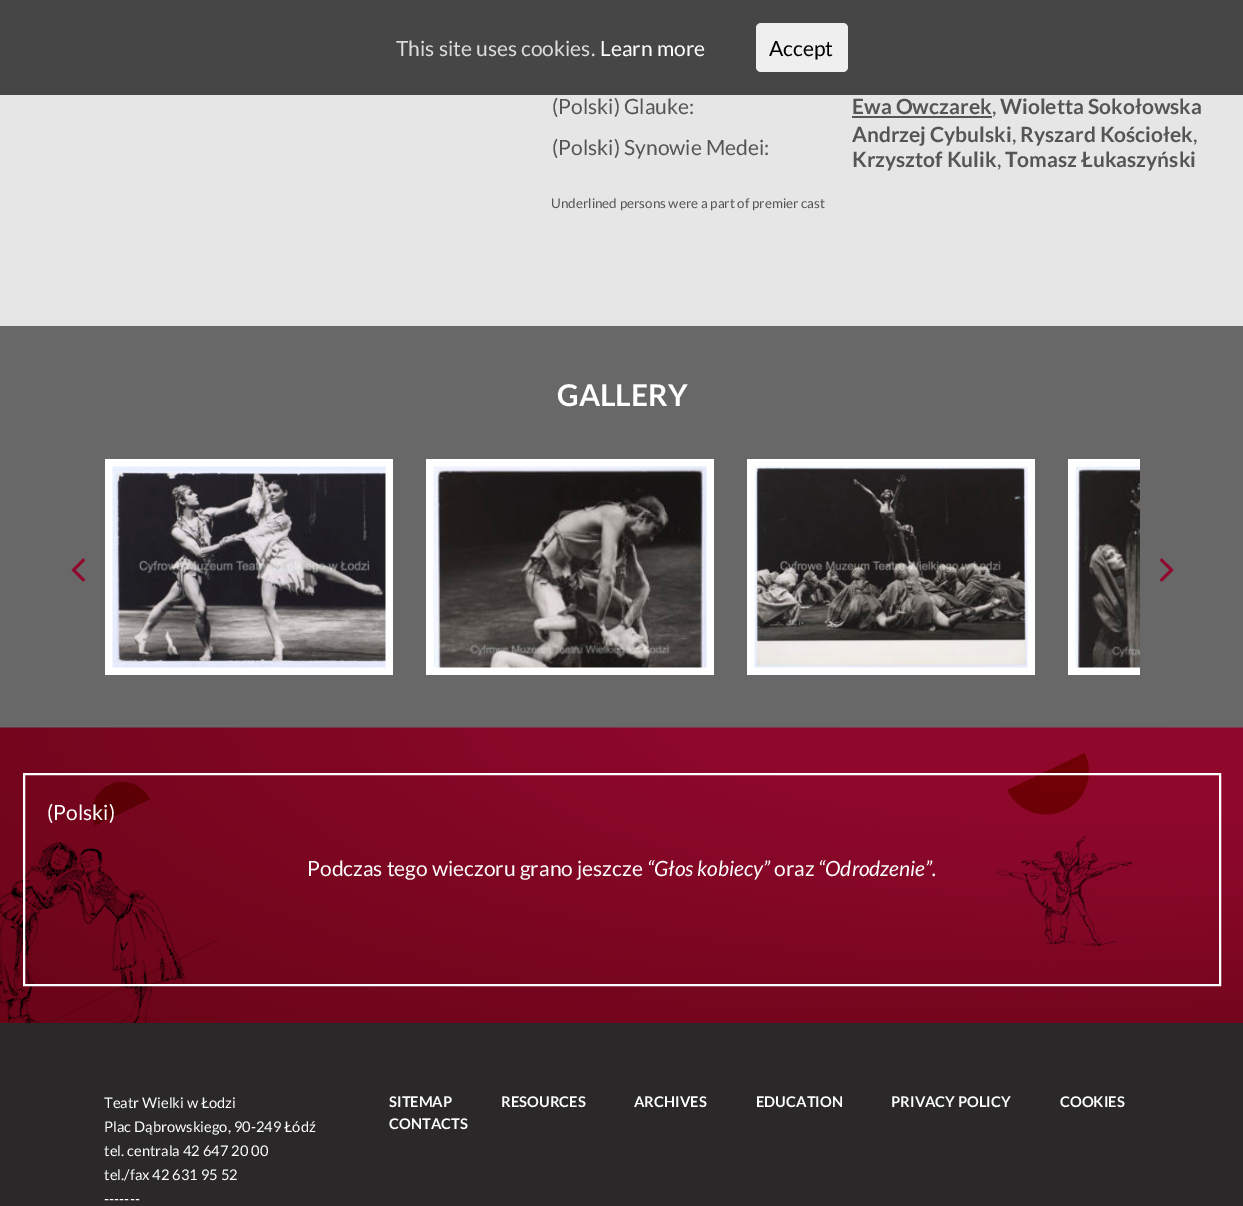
%!PS
<< /PageSize [1243 1206] >> setpagedevice
/fl/fill load def
/lw/setlinewidth load def
/co { dup -16 bitshift 255 div exch dup -8 bitshift 255 and 255 div exch 255 and 255 div setrgbcolor } def
/fn { [ exch dup neg 0 0 3 -1 roll 0 0 ] selectfont } def
/tx { co fn moveto show } def
/bx { co rectfill } def
/rr { 5 dict begin { /r /h /w /y /x } { exch def } forall
  x r add y moveto x w add y 2 copy h add r arct x w add y h add x 1 index r arct
  x y h add x y r arct x y 2 copy exch w add exch r arct closepath end } def
/im { 5 dict begin { /h /w /y /x /name } { exch def } forall
  gsave x y translate w h scale
  w h 8 [w 0 0 h 0 0] name (r) file false 3 colorimage grestore end } def
0 1206 translate 1 -1 scale
4 setmiterlimit
0 0 1243 1206 16#E6E6E6 bx
0 0 1243 95 16#464646 bx
16#EFEFEF co
756 23 92 49 5 rr fl
852 116 140 2 16#555557 bx
0 326 1243 402 16#686869 bx
(media/1.raw) 71 558 15 24 im
105 459 288 216 16#FFFFFF bx
(media/2.raw) 112 466 274 202 im
426 459 288 216 16#FFFFFF bx
(media/3.raw) 433 466 274 202 im
747 459 288 216 16#FFFFFF bx
(media/4.raw) 754 466 274 202 im
1068 459 72 216 16#FFFFFF bx
(media/5.raw) 1075 466 65 202 im
(media/6.raw) 1159 558 15 24 im
(media/7.raw) 0 727 1243 296 im
2 lw
24 774 1196 211 rectstroke
0 1023 1243 183 16#2A2829 bx
(This site uses cookies.) 396 56 /Lato-Regular 21 16#DDDDDD tx
(Learn more) 600 56 /Lato-Regular 21 16#FFFFFF tx
(Accept) 769 56 /Lato-Regular 21 16#000000 tx
(\(Polski\) Glauke:) 552 114 /Lato-Regular 21 16#555557 tx
(Ewa Owczarek) 852 114 /Lato-Bold 21 16#555557 tx
(,) 992 114 /Lato-Regular 21 16#555557 tx
(Wioletta Sokołowska) 1000 114 /Lato-Bold 21 16#555557 tx
(\(Polski\) Synowie Medei:) 552 155 /Lato-Regular 21 16#555557 tx
(Andrzej Cybulski) 852 142 /Lato-Bold 21 16#555557 tx
(,) 1012 142 /Lato-Regular 21 16#555557 tx
(Ryszard Kościołek) 1020 142 /Lato-Bold 21 16#555557 tx
(,) 1193 142 /Lato-Regular 21 16#555557 tx
(Krzysztof Kulik) 852 167 /Lato-Bold 21 16#555557 tx
(,) 997 167 /Lato-Regular 21 16#555557 tx
(Tomasz Łukaszyński) 1005 167 /Lato-Bold 21 16#555557 tx
(Underlined persons were a part of premier cast) 551 208 /Lato-Regular 13.4 16#555557 tx
(GALLERY) 557 406 /Lato-Bold 30 16#FFFFFF tx
(\(Polski\)) 47 820 /Lato-Regular 21 16#FFFFFF tx
(Podczas tego wieczoru grano jeszcze) 307 876 /Lato-Regular 21 16#FFFFFF tx
(“Głos kobiecy”) 647 876 /Lato-Italic 21 16#FFFFFF tx
(oraz) 774 876 /Lato-Regular 21 16#FFFFFF tx
(“Odrodzenie”.) 818 876 /Lato-Italic 21 16#FFFFFF tx
(Teatr Wielki w Łodzi) 104 1108 /Lato-Regular 14.75 16#FFFFFF tx
(Plac Dąbrowskiego, 90-249 Łódź) 104 1132 /Lato-Regular 14.75 16#FFFFFF tx
(tel. centrala 42 647 20 00) 104 1156 /Lato-Regular 14.75 16#FFFFFF tx
(tel./fax 42 631 95 52) 104 1180 /Lato-Regular 14.75 16#FFFFFF tx
(-------) 104 1204 /Lato-Regular 14.75 16#FFFFFF tx
(SITEMAP) 389 1107 /Lato-Bold 14.75 16#FFFFFF tx
(RESOURCES) 501 1107 /Lato-Bold 14.75 16#FFFFFF tx
(ARCHIVES) 634 1107 /Lato-Bold 14.75 16#FFFFFF tx
(EDUCATION) 756 1107 /Lato-Bold 14.75 16#FFFFFF tx
(PRIVACY POLICY) 891 1107 /Lato-Bold 14.75 16#FFFFFF tx
(COOKIES) 1060 1107 /Lato-Bold 14.75 16#FFFFFF tx
(CONTACTS) 389 1129 /Lato-Bold 14.75 16#FFFFFF tx
showpage
